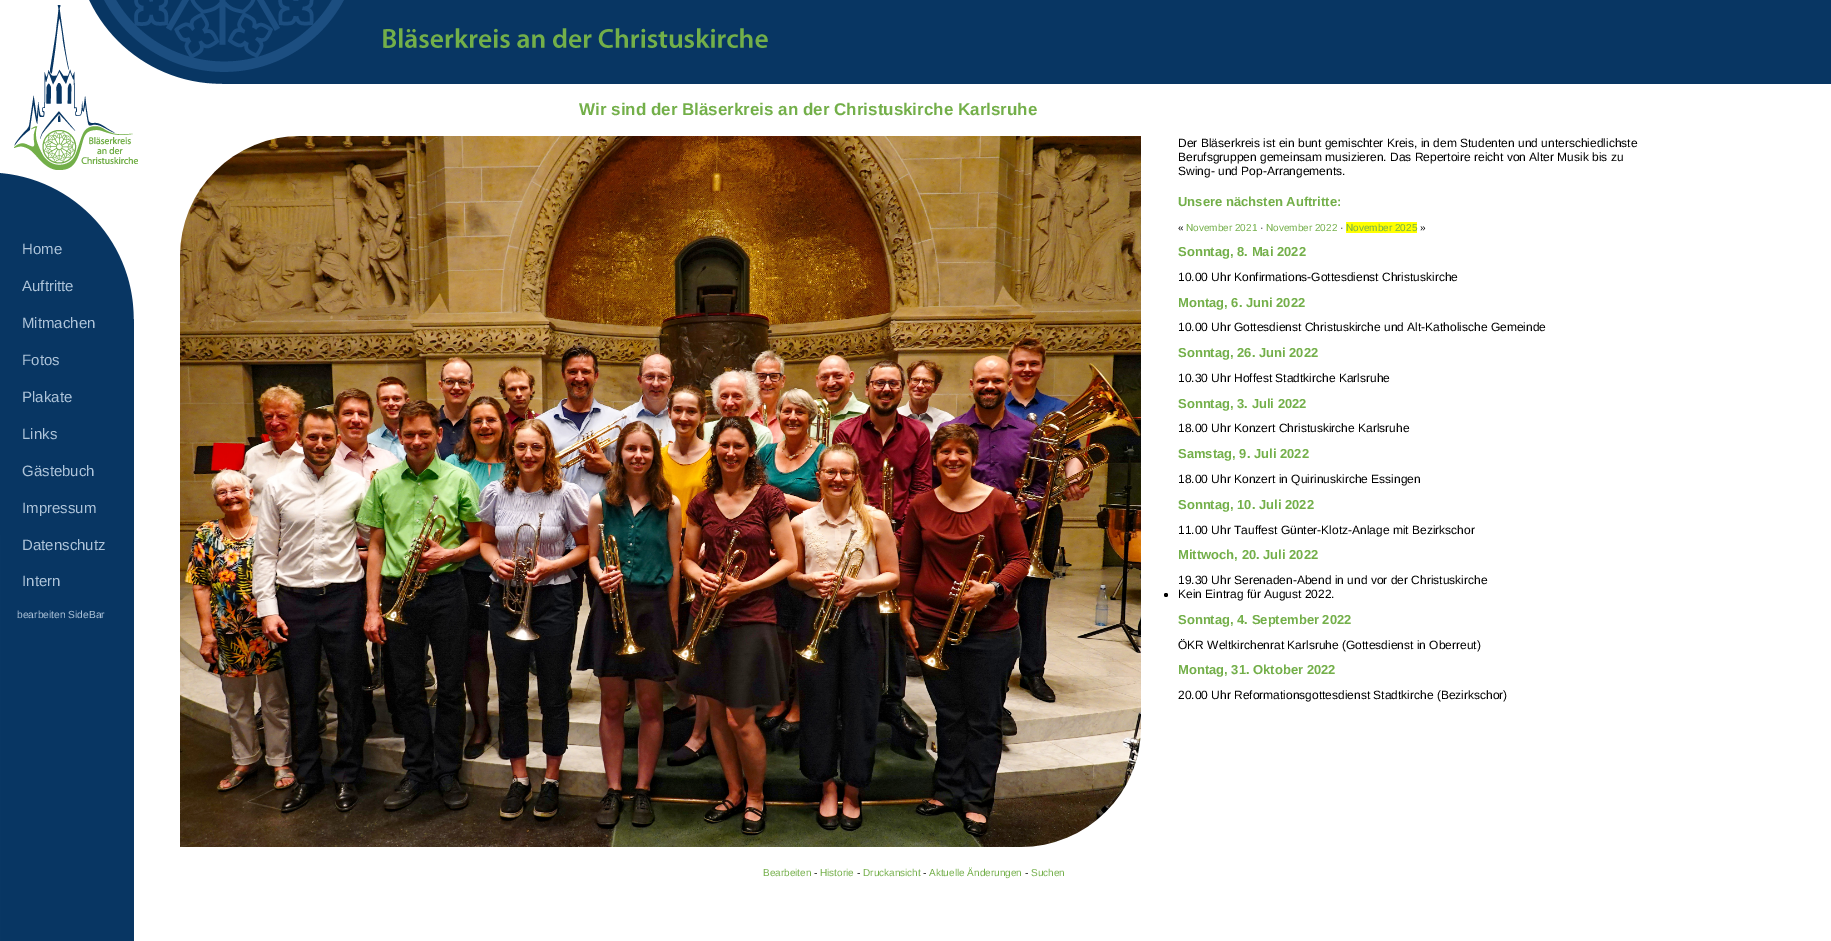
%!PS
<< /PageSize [1831 941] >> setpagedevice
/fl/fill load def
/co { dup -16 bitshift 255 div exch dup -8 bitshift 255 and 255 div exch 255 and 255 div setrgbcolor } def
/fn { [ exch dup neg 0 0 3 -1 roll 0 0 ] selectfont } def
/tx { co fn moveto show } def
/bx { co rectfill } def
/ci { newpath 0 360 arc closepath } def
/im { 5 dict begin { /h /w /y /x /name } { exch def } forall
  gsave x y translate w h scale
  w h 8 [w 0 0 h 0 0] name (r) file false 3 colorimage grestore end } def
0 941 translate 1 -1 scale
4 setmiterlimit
0 0 1831 941 16#FFFFFF bx
(media/1.raw) 0 0 1831 941 im
(media/2.raw) 180 136 961 711 im
1346 222 71 11 16#FFFF00 bx
16#000000 co
1166 595 2 ci fl
(Home) 22 254 /LiberationSans-Regular 15 16#AEC4D9 tx
(Auftritte) 22 291 /LiberationSans-Regular 15 16#AEC4D9 tx
(Mitmachen) 22 328 /LiberationSans-Regular 15 16#AEC4D9 tx
(Fotos) 22 365 /LiberationSans-Regular 15 16#AEC4D9 tx
(Plakate) 22 402 /LiberationSans-Regular 15 16#AEC4D9 tx
(Links) 22 439 /LiberationSans-Regular 15 16#AEC4D9 tx
(Gästebuch) 22 476 /LiberationSans-Regular 15 16#AEC4D9 tx
(Impressum) 22 513 /LiberationSans-Regular 15 16#AEC4D9 tx
(Datenschutz) 22 550 /LiberationSans-Regular 15 16#AEC4D9 tx
(Intern) 22 586 /LiberationSans-Regular 15 16#AEC4D9 tx
(bearbeiten SideBar) 17 618 /LiberationSans-Regular 10.25 16#AEC4D9 tx
(Wir sind der Bläserkreis an der Christuskirche Karlsruhe) 579 115 /LiberationSans-Bold 17 16#73AF49 tx
(Der Bläserkreis ist ein bunt gemischter Kreis, in dem Studenten und unterschiedlichste) 1178 147 /LiberationSans-Regular 12 16#000000 tx
(Berufsgruppen gemeinsam musizieren. Das Repertoire reicht von Alter Musik bis zu) 1178 161 /LiberationSans-Regular 12 16#000000 tx
(Swing- und Pop-Arrangements.) 1178 175 /LiberationSans-Regular 12 16#000000 tx
(Unsere nächsten Auftritte:) 1178 206 /LiberationSans-Bold 13 16#73AF49 tx
(«) 1178 231 /LiberationSans-Regular 10 16#000000 tx
(November 2021) 1186 231 /LiberationSans-Regular 10 16#73AF49 tx
(·) 1260 231 /LiberationSans-Regular 10 16#000000 tx
(November 2022) 1266 231 /LiberationSans-Regular 10 16#73AF49 tx
(·) 1340 231 /LiberationSans-Regular 10 16#000000 tx
(November 2025) 1346 231 /LiberationSans-Regular 10 16#73AF49 tx
(») 1420 231 /LiberationSans-Regular 10 16#000000 tx
(Sonntag, 8. Mai 2022) 1178 256 /LiberationSans-Bold 13 16#73AF49 tx
(10.00 Uhr Konfirmations-Gottesdienst Christuskirche) 1178 281 /LiberationSans-Regular 12 16#000000 tx
(Montag, 6. Juni 2022) 1178 307 /LiberationSans-Bold 13 16#73AF49 tx
(10.00 Uhr Gottesdienst Christuskirche und Alt-Katholische Gemeinde) 1178 331 /LiberationSans-Regular 12 16#000000 tx
(Sonntag, 26. Juni 2022) 1178 357 /LiberationSans-Bold 13 16#73AF49 tx
(10.30 Uhr Hoffest Stadtkirche Karlsruhe) 1178 382 /LiberationSans-Regular 12 16#000000 tx
(Sonntag, 3. Juli 2022) 1178 408 /LiberationSans-Bold 13 16#73AF49 tx
(18.00 Uhr Konzert Christuskirche Karlsruhe) 1178 432 /LiberationSans-Regular 12 16#000000 tx
(Samstag, 9. Juli 2022) 1178 458 /LiberationSans-Bold 13 16#73AF49 tx
(18.00 Uhr Konzert in Quirinuskirche Essingen) 1178 483 /LiberationSans-Regular 12 16#000000 tx
(Sonntag, 10. Juli 2022) 1178 509 /LiberationSans-Bold 13 16#73AF49 tx
(11.00 Uhr Tauffest Günter-Klotz-Anlage mit Bezirkschor) 1178 534 /LiberationSans-Regular 12 16#000000 tx
(Mittwoch, 20. Juli 2022) 1178 559 /LiberationSans-Bold 13 16#73AF49 tx
(19.30 Uhr Serenaden-Abend in und vor der Christuskirche) 1178 584 /LiberationSans-Regular 12 16#000000 tx
(Kein Eintrag für August 2022.) 1178 598 /LiberationSans-Regular 12 16#000000 tx
(Sonntag, 4. September 2022) 1178 624 /LiberationSans-Bold 13 16#73AF49 tx
(ÖKR Weltkirchenrat Karlsruhe \(Gottesdienst in Oberreut\)) 1178 649 /LiberationSans-Regular 12 16#000000 tx
(Montag, 31. Oktober 2022) 1178 674 /LiberationSans-Bold 13 16#73AF49 tx
(20.00 Uhr Reformationsgottesdienst Stadtkirche \(Bezirkschor\)) 1178 699 /LiberationSans-Regular 12 16#000000 tx
(Bearbeiten) 763 876 /LiberationSans-Regular 10 16#73AF49 tx
(-) 814 876 /LiberationSans-Regular 10 16#000000 tx
(Historie) 820 876 /LiberationSans-Regular 10 16#73AF49 tx
(-) 857 876 /LiberationSans-Regular 10 16#000000 tx
(Druckansicht) 863 876 /LiberationSans-Regular 10 16#73AF49 tx
(-) 923 876 /LiberationSans-Regular 10 16#000000 tx
(Aktuelle Änderungen) 929 876 /LiberationSans-Regular 10 16#73AF49 tx
(-) 1025 876 /LiberationSans-Regular 10 16#000000 tx
(Suchen) 1031 876 /LiberationSans-Regular 10 16#73AF49 tx
showpage
